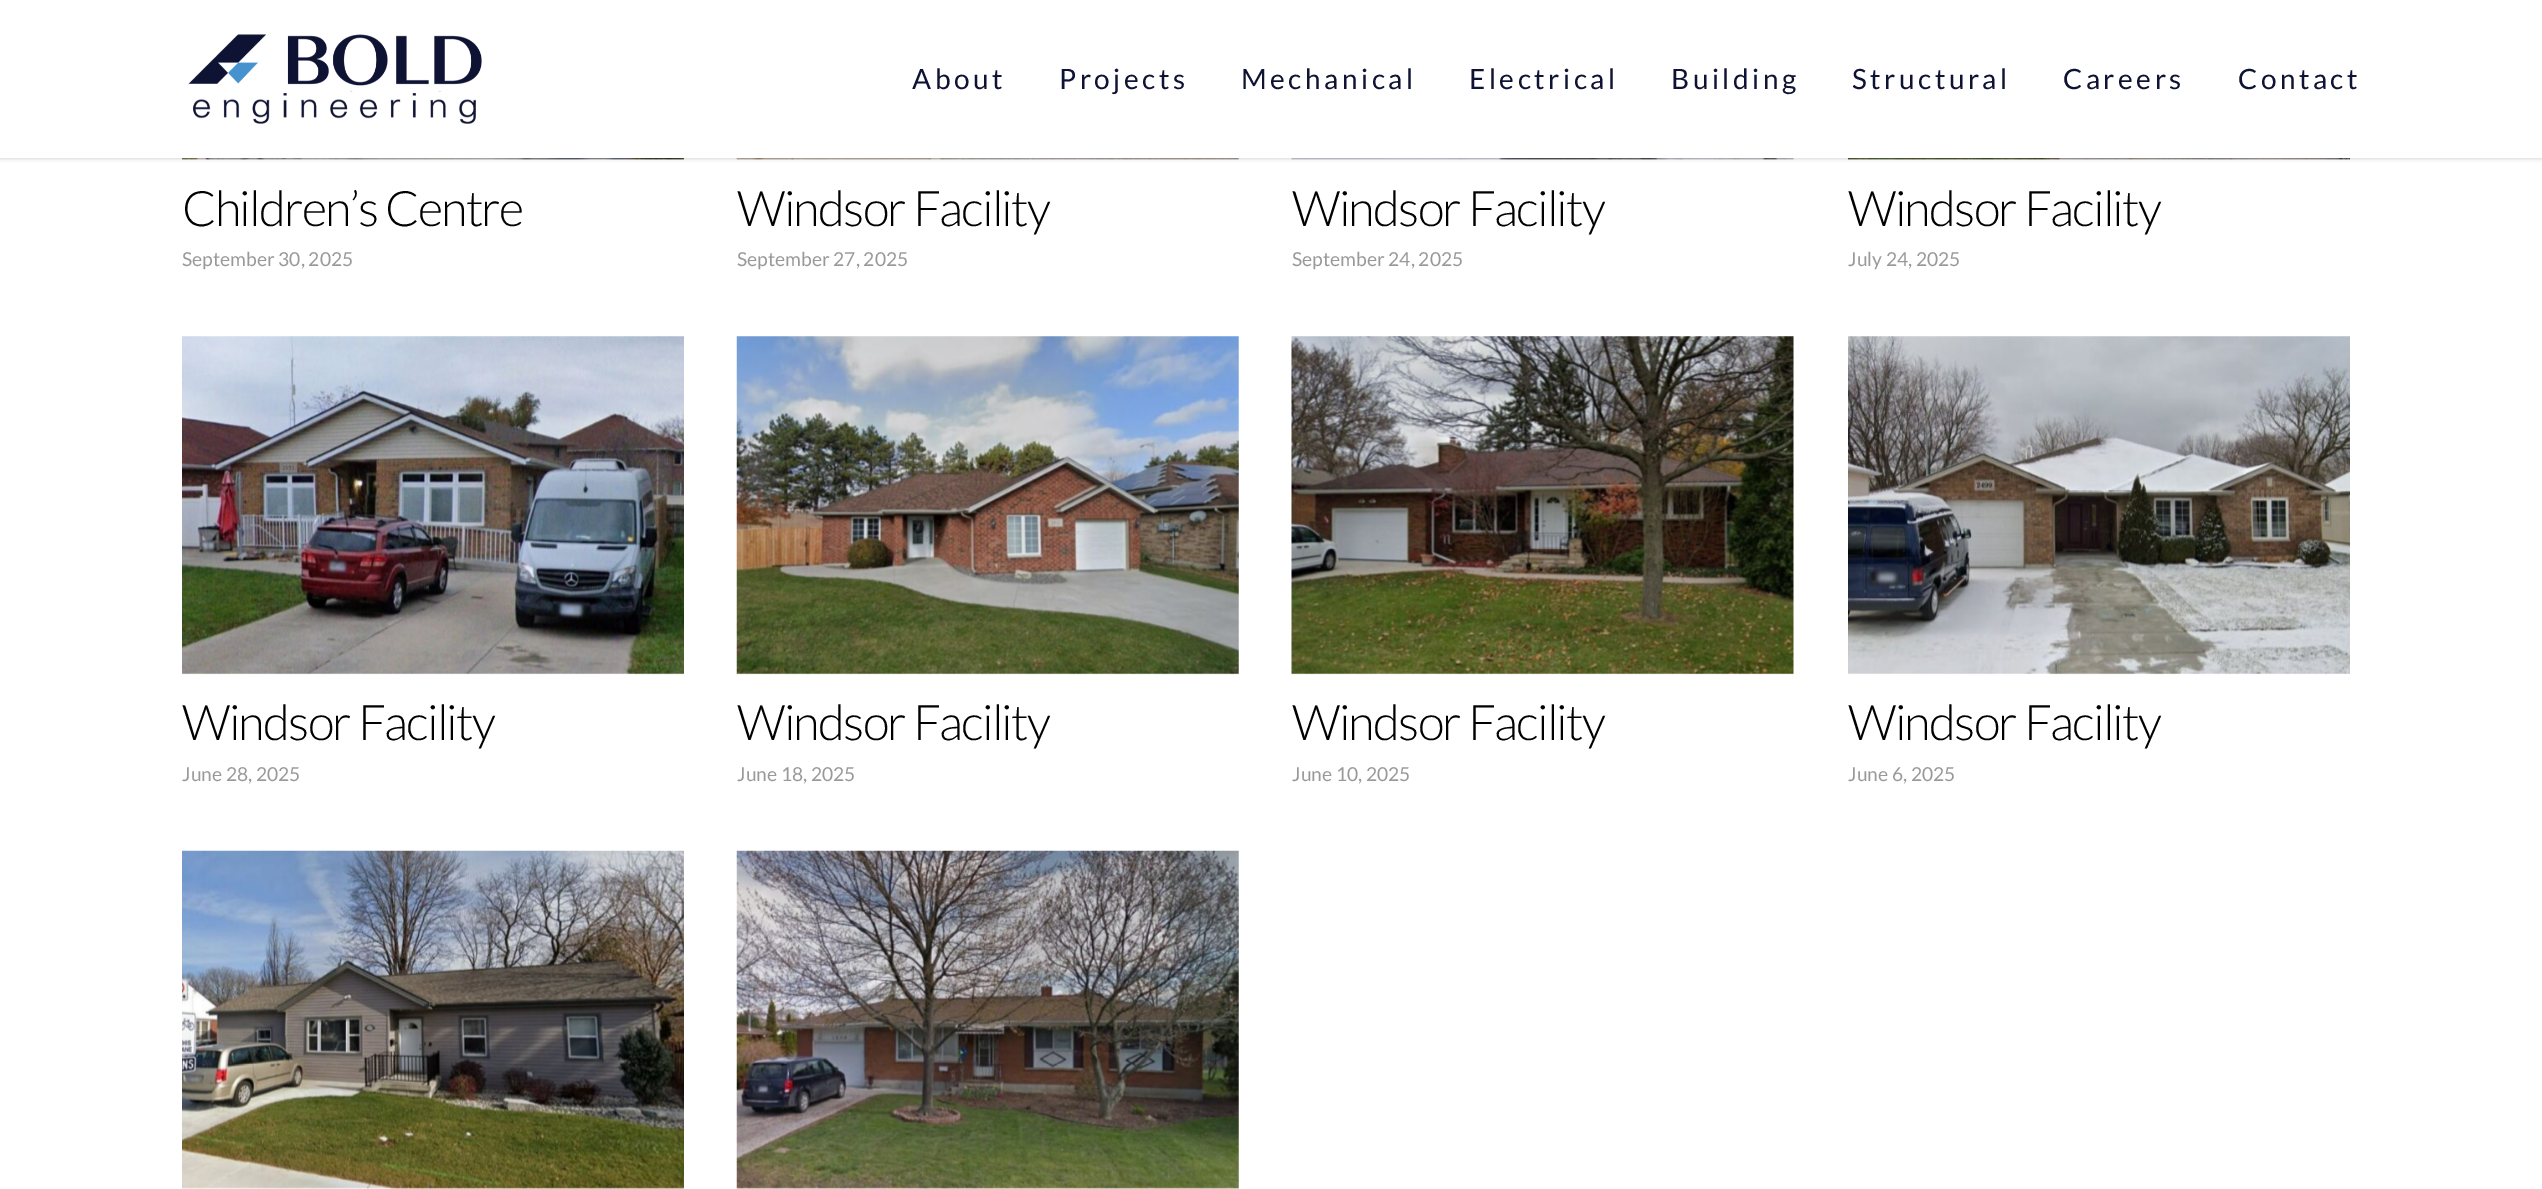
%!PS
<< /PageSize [2542 1189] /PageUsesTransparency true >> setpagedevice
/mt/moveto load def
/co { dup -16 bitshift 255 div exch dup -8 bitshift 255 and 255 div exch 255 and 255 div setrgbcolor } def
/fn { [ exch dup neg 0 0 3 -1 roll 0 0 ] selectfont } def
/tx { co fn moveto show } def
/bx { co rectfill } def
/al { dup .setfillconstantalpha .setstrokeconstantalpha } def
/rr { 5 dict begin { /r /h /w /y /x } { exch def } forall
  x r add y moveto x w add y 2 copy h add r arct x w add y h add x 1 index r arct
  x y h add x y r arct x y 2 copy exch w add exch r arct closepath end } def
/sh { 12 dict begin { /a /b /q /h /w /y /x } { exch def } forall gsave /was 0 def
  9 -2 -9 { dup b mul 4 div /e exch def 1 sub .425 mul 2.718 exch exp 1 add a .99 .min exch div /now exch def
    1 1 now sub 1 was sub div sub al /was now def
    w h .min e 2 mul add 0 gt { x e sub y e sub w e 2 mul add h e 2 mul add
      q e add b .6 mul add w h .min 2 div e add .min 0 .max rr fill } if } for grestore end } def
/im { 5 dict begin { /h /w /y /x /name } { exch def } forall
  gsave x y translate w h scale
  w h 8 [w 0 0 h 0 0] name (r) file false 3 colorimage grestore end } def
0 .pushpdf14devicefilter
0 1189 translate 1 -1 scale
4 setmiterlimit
0 0 2542 1189 16#FFFFFF bx
(media/2.raw) 182 158 502 2 im
(media/3.raw) 736 158 503 2 im
(media/4.raw) 1291 158 503 2 im
(media/5.raw) 1848 158 502 2 im
16#000000 co
0 0 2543 158 0 2.5 .22 sh
0 0 2542 158 16#FFFFFF bx
(media/1.raw) 188 34 294 90 im
(media/6.raw) 182 336 502 339 im
(media/7.raw) 736 336 503 339 im
(media/8.raw) 1291 336 503 339 im
(media/9.raw) 1848 336 502 339 im
(media/10.raw) 182 850 502 339 im
(media/11.raw) 736 850 503 339 im
/Lato-Regular 28 fn
16#0F1333 co
912 89 mt 3.5 0 (About) ashow
1059 89 mt 3.5 0 (Projects) ashow
1241 89 mt 3.5 0 (Mechanical) ashow
1469 89 mt 3.5 0 (Electrical) ashow
1671 89 mt 3.5 0 (Building) ashow
1852 89 mt 3.5 0 (Structural) ashow
2063 89 mt 3.5 0 (Careers) ashow
2238 89 mt 3.5 0 (Contact) ashow
/Lato-Light 49 fn
16#000000 co
182 226 mt -1.75 0 (Children’s Centre) ashow
(September 30, 2025) 182 266 /Lato-Regular 19.25 16#999999 tx
/Lato-Light 49 fn
16#000000 co
737 226 mt -1.75 0 (Windsor Facility) ashow
(September 27, 2025) 737 266 /Lato-Regular 19.25 16#999999 tx
/Lato-Light 49 fn
16#000000 co
1292 226 mt -1.75 0 (Windsor Facility) ashow
(September 24, 2025) 1292 266 /Lato-Regular 19.25 16#999999 tx
/Lato-Light 49 fn
16#000000 co
1848 226 mt -1.75 0 (Windsor Facility) ashow
(July 24, 2025) 1848 266 /Lato-Regular 19.25 16#999999 tx
/Lato-Light 49 fn
16#000000 co
182 740 mt -1.75 0 (Windsor Facility) ashow
(June 28, 2025) 182 781 /Lato-Regular 19.25 16#999999 tx
/Lato-Light 49 fn
16#000000 co
737 740 mt -1.75 0 (Windsor Facility) ashow
(June 18, 2025) 737 781 /Lato-Regular 19.25 16#999999 tx
/Lato-Light 49 fn
16#000000 co
1292 740 mt -1.75 0 (Windsor Facility) ashow
(June 10, 2025) 1292 781 /Lato-Regular 19.25 16#999999 tx
/Lato-Light 49 fn
16#000000 co
1848 740 mt -1.75 0 (Windsor Facility) ashow
(June 6, 2025) 1848 781 /Lato-Regular 19.25 16#999999 tx
.poppdf14devicefilter showpage
